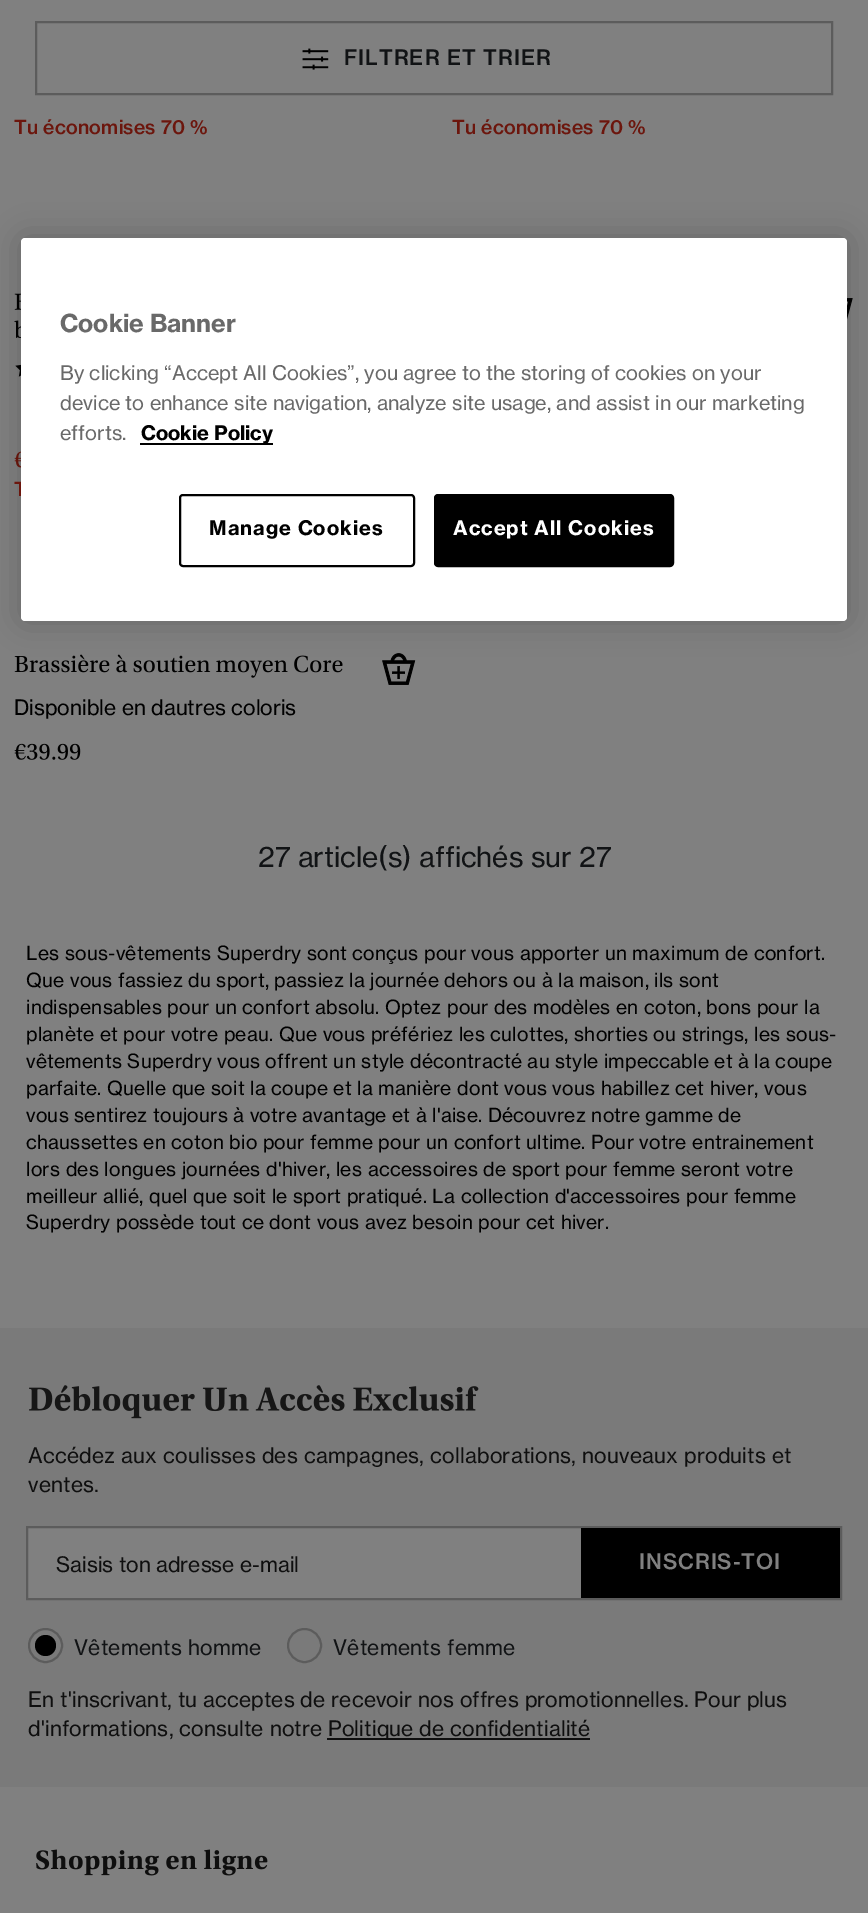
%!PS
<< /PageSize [868 1913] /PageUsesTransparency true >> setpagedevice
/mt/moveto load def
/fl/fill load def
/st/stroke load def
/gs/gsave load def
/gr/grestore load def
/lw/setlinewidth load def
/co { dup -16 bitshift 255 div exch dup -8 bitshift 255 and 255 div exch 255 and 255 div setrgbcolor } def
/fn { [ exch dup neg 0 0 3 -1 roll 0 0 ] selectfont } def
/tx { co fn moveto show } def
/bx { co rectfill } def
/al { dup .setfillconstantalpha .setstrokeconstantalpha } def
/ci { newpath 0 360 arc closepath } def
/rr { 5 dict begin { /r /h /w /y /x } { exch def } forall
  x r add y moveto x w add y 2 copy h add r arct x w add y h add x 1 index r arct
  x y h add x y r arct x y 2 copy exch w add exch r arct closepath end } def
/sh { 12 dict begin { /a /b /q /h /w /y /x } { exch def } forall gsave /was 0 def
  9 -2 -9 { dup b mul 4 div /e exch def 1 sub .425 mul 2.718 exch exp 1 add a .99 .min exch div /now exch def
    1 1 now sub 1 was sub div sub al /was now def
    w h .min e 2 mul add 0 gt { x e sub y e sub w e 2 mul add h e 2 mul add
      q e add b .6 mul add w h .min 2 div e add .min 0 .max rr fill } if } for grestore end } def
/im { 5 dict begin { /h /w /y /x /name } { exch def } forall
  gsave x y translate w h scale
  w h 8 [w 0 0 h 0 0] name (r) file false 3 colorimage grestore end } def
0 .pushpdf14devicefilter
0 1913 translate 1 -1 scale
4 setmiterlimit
0 0 868 1913 16#808080 bx
16#5C5C5C co
2 lw
36 22 796 72 rectstroke
(media/1.raw) 302 48 27 22 im
(media/2.raw) 847 298 6 22 im
(media/3.raw) 14 293 7 17 im
(media/4.raw) 14 320 7 18 im
(media/5.raw) 15 364 6 13 im
(media/6.raw) 14 451 7 17 im
(media/7.raw) 14 654 329 24 im
(media/8.raw) 382 653 34 32 im
(media/9.raw) 14 743 67 17 im
0 1328 868 459 16#7A7A7A bx
(media/10.raw) 29 1385 450 34 im
28 1528 553 70 16#808080 bx
16#5C5C5C co
27 1527 814 72 rectstroke
581 1528 259 70 16#000000 bx
16#5C5C5C co
45.5 1645.5 16.5 ci st
16#000000 co
45.5 1645.5 10.5 ci fl
16#5C5C5C co
304.5 1645.5 16.5 ci st
327 1738 263 2 16#0F0F0F bx
(media/11.raw) 36 1849 232 27 im
16#000000 co
21 238 826 383 4 16 .2 sh
/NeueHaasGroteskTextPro-Medium 21 fn
16#111315 co
344 65 mt 1 0 (FILTRER ET TRIER) ashow
/NeueHaasGroteskTextPro-Medium 19.25 fn
16#6C160D co
14 134 mt .2 0 (Tu économises 70 %) ashow
452 134 mt .2 0 (Tu économises 70 %) ashow
14 496 mt .2 0 (T) ashow
(Disponible en dautres coloris) 14 715 /NeueHaasGroteskTextPro-Regular 21 16#000000 tx
(27 article\(s\) affichés sur 27) 258 867 /NeueHaasGroteskTextPro-Regular 28 16#111315 tx
/NeueHaasGroteskTextPro-Regular 19.25 fn
16#000000 co
26 960 mt .25 0 (Les sous-vêtements Superdry sont conçus pour vous apporter un maximum de confort.) ashow
26 987 mt .25 0 (Que vous fassiez du sport, passiez la journée dehors ou à la maison, ils sont) ashow
26 1014 mt .25 0 (indispensables pour un confort absolu. Optez pour des modèles en coton, bons pour la) ashow
26 1041 mt .25 0 (planète et pour votre peau. Que vous préfériez les culottes, shorties ou strings, les sous-) ashow
26 1068 mt .25 0 (vêtements Superdry vous offrent un style décontracté au style impeccable et à la coupe) ashow
26 1095 mt .25 0 (parfaite. Quelle que soit la coupe et la manière dont vous vous habillez cet hiver, vous) ashow
26 1122 mt .25 0 (vous sentirez toujours à votre avantage et à l'aise. Découvrez notre gamme de) ashow
26 1149 mt .25 0 (chaussettes en coton bio pour femme pour un confort ultime. Pour votre entrainement) ashow
26 1176 mt .25 0 (lors des longues journées d'hiver, les accessoires de sport pour femme seront votre) ashow
26 1203 mt .25 0 (meilleur allié, quel que soit le sport pratiqué. La collection d'accessoires pour femme) ashow
26 1229 mt .25 0 (Superdry possède tout ce dont vous avez besoin pour cet hiver.) ashow
/NeueHaasGroteskTextPro-Regular 21 fn
16#0F0F0F co
28 1463 mt .25 0 (Accédez aux coulisses des campagnes, collaborations, nouveaux produits et) ashow
28 1492 mt .25 0 (ventes.) ashow
(Saisis ton adresse e-mail) 56 1572 /NeueHaasGroteskTextPro-Regular 21 16#0F0F0F tx
/NeueHaasGroteskTextPro-Medium 21 fn
16#808080 co
639 1569 mt 1 0 (INSCRIS-TOI) ashow
/NeueHaasGroteskTextPro-Regular 21 fn
16#111315 co
74 1655 mt .25 0 (Vêtements homme) ashow
333 1655 mt .25 0 (Vêtements femme) ashow
16#0F0F0F co
28 1707 mt .18 0 (En t'inscrivant, tu acceptes de recevoir nos offres promotionnelles. Pour plus) ashow
28 1736 mt .18 0 (d'informations, consulte notre) ashow
328 1736 mt .18 0 (Politique de confidentialité) ashow
16#FFFFFF co
21 238 826 383 4 rr fl
(Cookie Banner) 60 332 /NeueHaasGroteskTextPro-Bold 24.5 16#696969 tx
(By clicking “Accept All Cookies”, you agree to the storing of cookies on your) 60 380 /NeueHaasGroteskTextPro-Regular 19.9 16#696969 tx
(device to enhance site navigation, analyze site usage, and assist in our marketing) 60 410 /NeueHaasGroteskTextPro-Regular 19.9 16#696969 tx
(efforts.) 60 440 /NeueHaasGroteskTextPro-Regular 19.9 16#696969 tx
140 443 133 2 16#000000 bx
(Cookie Policy) 141 440 /NeueHaasGroteskTextPro-Bold 19.9 16#000000 tx
180 495 234 71 3 rr st
209 535 mt 1 0 (Manage Cookies) ashow
435 495 238 71 3 rr gs fl gr
st
16#FFFFFF co
453 535 mt 1 0 (Accept All Cookies) ashow
.poppdf14devicefilter showpage
